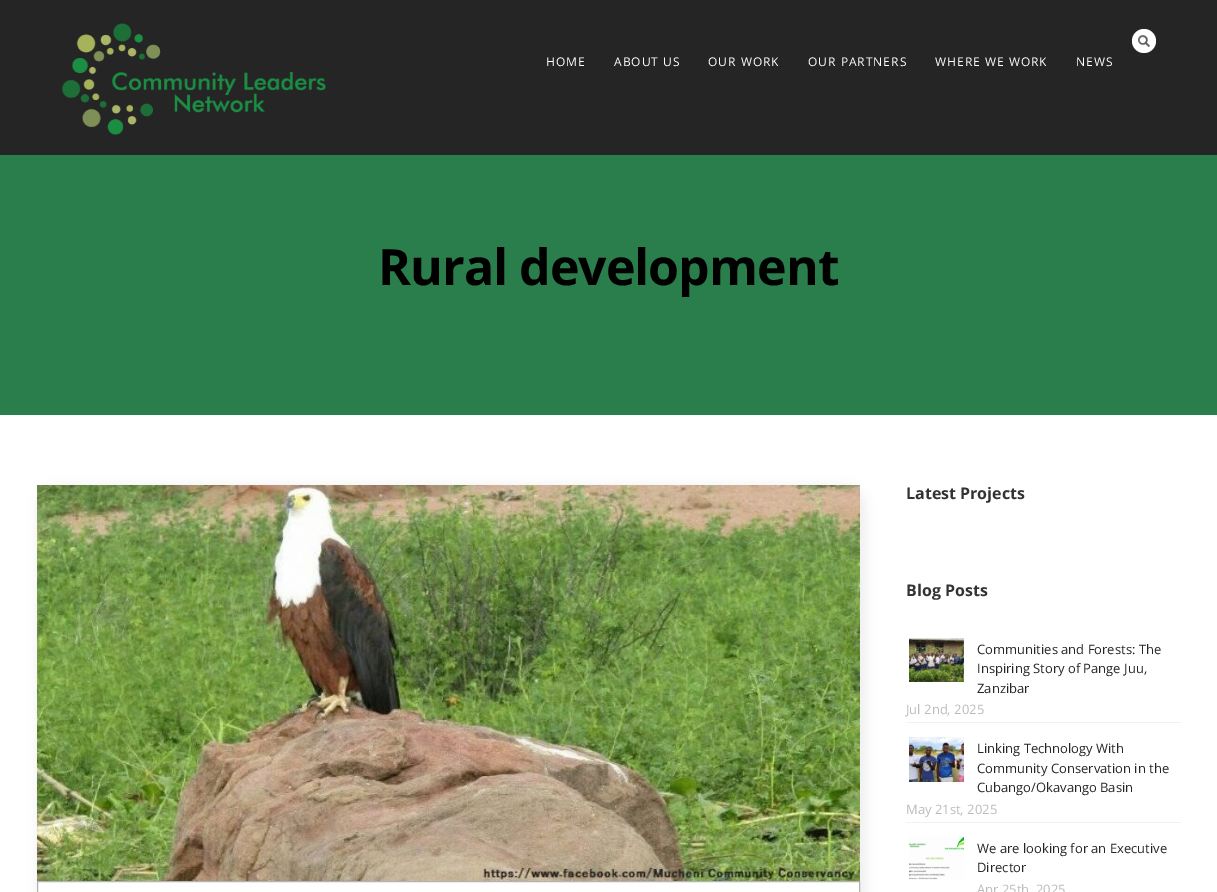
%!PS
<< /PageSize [1217 892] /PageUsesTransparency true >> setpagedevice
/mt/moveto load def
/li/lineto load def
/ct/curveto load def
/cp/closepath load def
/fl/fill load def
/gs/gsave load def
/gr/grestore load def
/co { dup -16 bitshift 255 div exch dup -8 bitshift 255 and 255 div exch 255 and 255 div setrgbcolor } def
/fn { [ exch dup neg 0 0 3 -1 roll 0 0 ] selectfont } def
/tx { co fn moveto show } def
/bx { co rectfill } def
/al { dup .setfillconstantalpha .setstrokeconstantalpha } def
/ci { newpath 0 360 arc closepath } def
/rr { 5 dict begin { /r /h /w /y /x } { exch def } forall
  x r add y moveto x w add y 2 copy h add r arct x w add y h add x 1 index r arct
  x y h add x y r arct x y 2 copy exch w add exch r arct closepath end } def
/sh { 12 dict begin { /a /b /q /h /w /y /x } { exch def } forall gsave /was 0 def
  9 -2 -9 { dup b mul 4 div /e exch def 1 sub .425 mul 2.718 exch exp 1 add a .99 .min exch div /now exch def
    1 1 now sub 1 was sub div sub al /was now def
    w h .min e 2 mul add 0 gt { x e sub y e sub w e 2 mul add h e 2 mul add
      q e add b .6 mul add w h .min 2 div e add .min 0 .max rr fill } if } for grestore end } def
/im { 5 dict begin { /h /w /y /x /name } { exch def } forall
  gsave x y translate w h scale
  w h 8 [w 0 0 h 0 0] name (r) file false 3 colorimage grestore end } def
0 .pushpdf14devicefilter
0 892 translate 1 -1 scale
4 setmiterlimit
0 0 1217 892 16#FFFFFF bx
0 0 1217 155 16#252525 bx
(media/1.raw) 61 23 265 112 im
16#FFFFFF co
1144 41 12 ci fl
(media/2.raw) 1138 35 12 12 im
0 155 1217 260 16#2A7E4C bx
gs
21 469 mt 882 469 li 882 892 li 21 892 li cp 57 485 mt 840 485 li 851 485 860 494 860 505 ct 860 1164 li 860 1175 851 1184 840 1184 ct 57 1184 li 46 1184 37 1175 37 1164 ct 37 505 li 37 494 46 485 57 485 ct cp eoclip newpath
16#EFEFEF co
37 485 829 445 23 5 1 sh
gr
(media/3.raw) 37 485 823 396 im
16#B3B3B3 co
37.5 881.5 822 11 rectstroke
906 722 275 1 16#F2F2F2 bx
(media/4.raw) 909 638 55 44 im
906 822 275 1 16#F2F2F2 bx
(media/5.raw) 909 737 55 45 im
(media/6.raw) 909 837 55 43 im
/OpenSans-Regular 12 fn
16#FFFFFF co
546 66 mt 1 0 (HOME) ashow
614 66 mt 1 0 (ABOUT US) ashow
708 66 mt 1 0 (OUR WORK) ashow
808 66 mt 1 0 (OUR PARTNERS) ashow
935 66 mt 1 0 (WHERE WE WORK) ashow
1076 66 mt 1 0 (NEWS) ashow
/OpenSans-Bold 50 fn
16#000000 co
378 285 mt -1 0 (Rural development) ashow
(Latest Projects) 906 499 /OpenSans-Bold 16 16#333332 tx
(Blog Posts) 906 596 /OpenSans-Bold 16 16#333332 tx
(Communities and Forests: The) 977 654 /OpenSans-Regular 13 16#252525 tx
(Inspiring Story of Pange Juu,) 977 673 /OpenSans-Regular 13 16#252525 tx
(Zanzibar) 977 693 /OpenSans-Regular 13 16#252525 tx
(Jul 2nd, 2025) 906 714 /OpenSans-Regular 13 16#BBBBBB tx
(Linking Technology With) 977 753 /OpenSans-Regular 13 16#252525 tx
(Community Conservation in the) 977 773 /OpenSans-Regular 13 16#252525 tx
(Cubango/Okavango Basin) 977 792 /OpenSans-Regular 13 16#252525 tx
(May 21st, 2025) 906 814 /OpenSans-Regular 13 16#BBBBBB tx
(We are looking for an Executive) 977 853 /OpenSans-Regular 13 16#252525 tx
(Director) 977 872 /OpenSans-Regular 13 16#252525 tx
(Apr 25th, 2025) 977 894 /OpenSans-Regular 13 16#BBBBBB tx
.poppdf14devicefilter showpage
